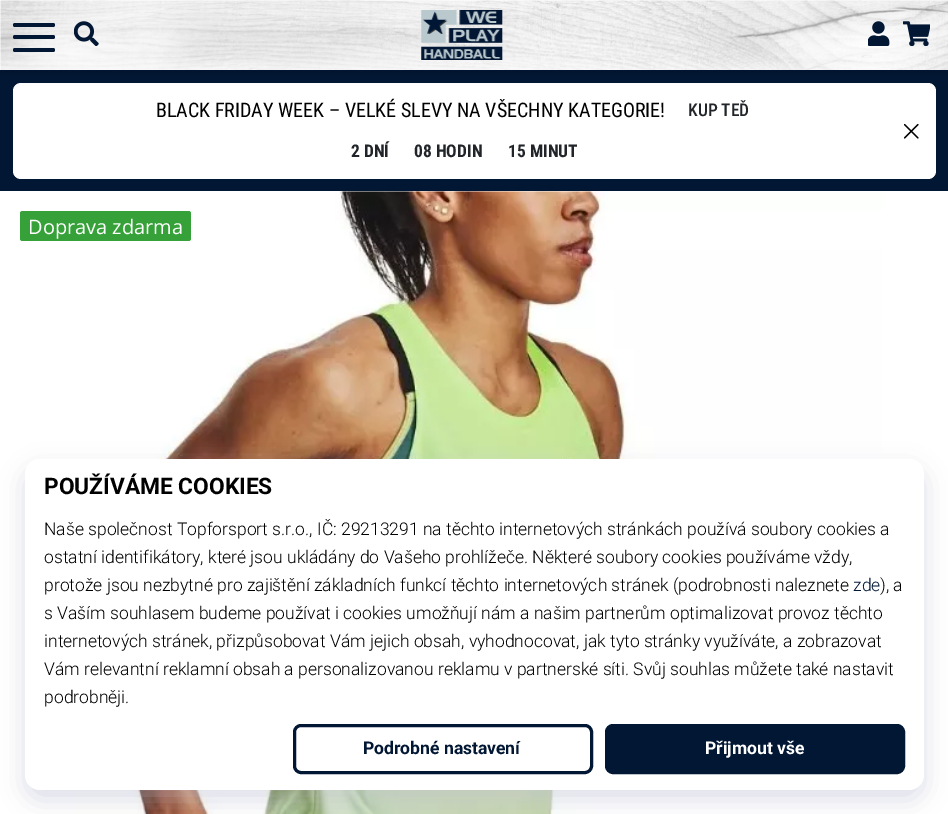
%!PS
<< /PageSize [948 814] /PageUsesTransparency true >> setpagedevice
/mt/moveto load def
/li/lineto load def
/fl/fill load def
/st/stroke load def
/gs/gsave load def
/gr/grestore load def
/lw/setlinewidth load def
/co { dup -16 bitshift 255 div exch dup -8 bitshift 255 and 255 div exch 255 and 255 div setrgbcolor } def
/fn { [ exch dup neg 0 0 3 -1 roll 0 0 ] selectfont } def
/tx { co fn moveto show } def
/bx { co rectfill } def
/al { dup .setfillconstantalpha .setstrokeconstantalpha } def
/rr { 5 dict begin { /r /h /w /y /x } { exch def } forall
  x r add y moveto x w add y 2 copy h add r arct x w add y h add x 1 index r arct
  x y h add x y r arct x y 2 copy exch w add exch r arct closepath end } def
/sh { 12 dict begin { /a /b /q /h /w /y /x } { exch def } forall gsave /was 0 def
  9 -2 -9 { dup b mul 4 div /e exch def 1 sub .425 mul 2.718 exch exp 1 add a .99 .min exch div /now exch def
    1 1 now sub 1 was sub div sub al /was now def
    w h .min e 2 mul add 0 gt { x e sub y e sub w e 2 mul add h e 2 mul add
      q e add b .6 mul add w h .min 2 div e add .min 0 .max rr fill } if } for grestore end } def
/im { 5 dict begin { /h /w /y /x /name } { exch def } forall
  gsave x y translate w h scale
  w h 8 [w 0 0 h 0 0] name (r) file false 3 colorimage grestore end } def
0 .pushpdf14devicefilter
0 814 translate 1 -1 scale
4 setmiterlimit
0 0 948 814 16#FFFFFF bx
0 70 948 121 16#021734 bx
16#FFFFFF co
13 83 923 96 8 rr fl
16#000000 co
0 0 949 70 0 7.5 .15 sh
(media/1.raw) 0 0 948 70 im
16#021734 co
13 23 42 4 2 rr fl
13 35 42 4 2 rr fl
13 48 42 4 2 rr fl
(media/2.raw) 74 21 25 25 im
(media/3.raw) 421 10 82 50 im
(media/4.raw) 868 21 22 25 im
(media/5.raw) 903 21 27 25 im
16#000000 co
1.2 lw
1 setlinecap
1 setlinejoin
918 138 mt 904.5 124.5 li 918 124.5 mt 904.5 138 li st
(media/6.raw) 75 191 807 623 im
16#37A139 co
20 211 171 30 2.5 rr fl
16#BCBED2 co
25 469 899 331 15 12.5 .5 sh
16#FFFFFF co
25 459 899 331 15 rr fl
16#021734 co
3 lw
0 setlinecap
0 setlinejoin
294.5 725.5 297 47 6.5 rr st
606.5 725.5 297 47 6.5 rr gs fl gr
st
(BLACK FRIDAY WEEK – VELKÉ SLEVY NA VŠECHNY KATEGORIE!) 156 117 /RobotoCondensed-Regular 20 16#000000 tx
(KUP TEĎ) 688 116 /RobotoCondensed-Medium 17.5 16#212529 tx
(2 DNÍ) 351 157 /RobotoCondensed-Bold 17.5 16#212529 tx
(08 HODIN) 414 157 /RobotoCondensed-Bold 17.5 16#212529 tx
(15 MINUT) 508 157 /RobotoCondensed-Bold 17.5 16#212529 tx
(Doprava zdarma) 28 234 /OpenSans-Regular 20 16#FFFFFF tx
(POUŽÍVÁME COOKIES) 44 494 /Roboto-Bold 22.75 16#000000 tx
(Naše společnost Topforsport s.r.o., IČ: 29213291 na těchto internetových stránkách používá soubory cookies a) 44 535 /Roboto-Light 17.5 16#000000 tx
(ostatní identifikátory, které jsou ukládány do Vašeho prohlížeče. Některé soubory cookies používáme vždy,) 44 563 /Roboto-Light 17.5 16#000000 tx
(protože jsou nezbytné pro zajištění základních funkcí těchto internetových stránek \(podrobnosti naleznete) 44 591 /Roboto-Light 17.5 16#000000 tx
(zde) 853 591 /Roboto-Light 17.5 16#021734 tx
(\), a) 880 591 /Roboto-Light 17.5 16#000000 tx
(s Vaším souhlasem budeme používat i cookies umožňují nám a našim partnerům optimalizovat provoz těchto) 44 619 /Roboto-Light 17.5 16#000000 tx
(internetových stránek, přizpůsobovat Vám jejich obsah, vyhodnocovat, jak tyto stránky využíváte, a zobrazovat) 44 647 /Roboto-Light 17.5 16#000000 tx
(Vám relevantní reklamní obsah a personalizovanou reklamu v partnerské síti. Svůj souhlas můžete také nastavit) 44 675 /Roboto-Light 17.5 16#000000 tx
(podrobněji.) 44 703 /Roboto-Light 17.5 16#000000 tx
(Podrobné nastavení) 363 754 /Roboto-Bold 17.5 16#021734 tx
(Přijmout vše) 705 754 /Roboto-Bold 17.5 16#FFFFFF tx
.poppdf14devicefilter showpage
